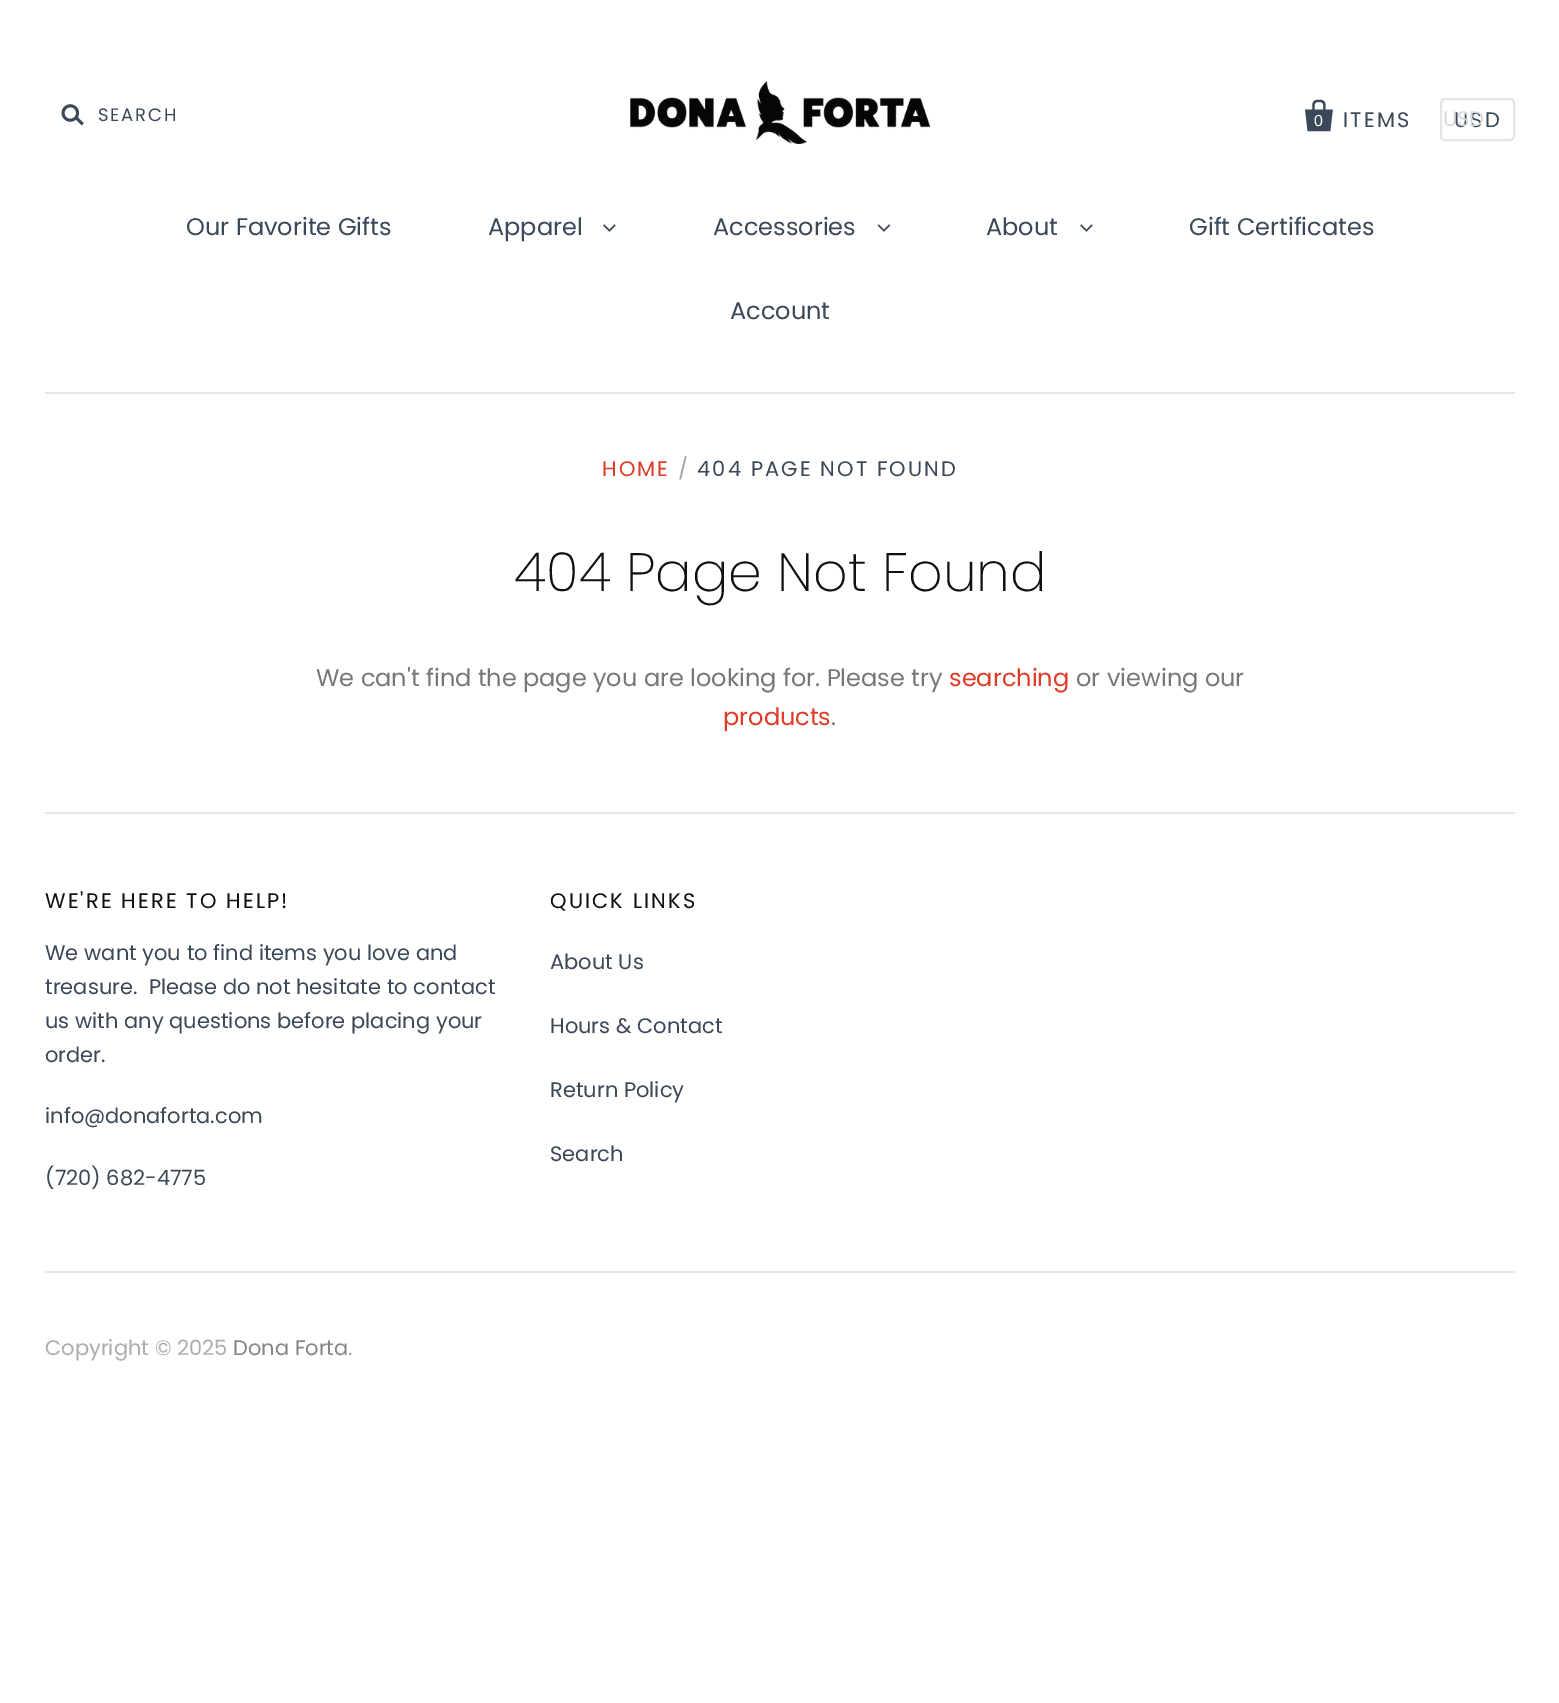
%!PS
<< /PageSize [1559 1703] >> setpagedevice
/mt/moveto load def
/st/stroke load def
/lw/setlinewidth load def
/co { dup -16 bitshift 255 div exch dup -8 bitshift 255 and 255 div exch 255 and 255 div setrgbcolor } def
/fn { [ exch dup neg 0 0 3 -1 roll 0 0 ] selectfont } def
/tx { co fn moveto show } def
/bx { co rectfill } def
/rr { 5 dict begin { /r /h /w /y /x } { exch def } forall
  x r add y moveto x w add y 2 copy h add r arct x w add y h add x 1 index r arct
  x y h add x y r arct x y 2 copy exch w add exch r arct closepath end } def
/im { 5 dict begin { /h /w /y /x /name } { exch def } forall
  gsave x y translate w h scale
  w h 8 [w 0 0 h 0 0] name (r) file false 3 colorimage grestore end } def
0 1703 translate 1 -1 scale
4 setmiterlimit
0 0 1559 1703 16#FFFFFF bx
45 392 1470 2 16#E5E5E5 bx
(media/1.raw) 61 104 23 22 im
(media/2.raw) 630 81 300 63 im
(media/3.raw) 1305 99 28 33 im
2 lw
1441 99 73 41 4 rr st
(media/4.raw) 603 224 13 8 im
(media/5.raw) 877 224 14 8 im
(media/4.raw) 1080 224 13 8 im
45 812 1470 2 16#E5E5E5 bx
45 1271 1470 2 16#E5E5E5 bx
/Poppins-Regular 18 fn
16#3B4858 co
98 121 mt 1.75 0 (SEARCH) ashow
/Poppins-Regular 21 fn
1343 127 mt 2.1 0 (ITEMS) ashow
/LiberationSans-Regular 16 fn
16#FFFFFF co
1314 126 mt 2.1 0 (0) ashow
/Poppins-Regular 21 fn
16#3B4858 co
1454 127 mt 2.1 0 (USD) ashow
(USD) 1443 126 /Poppins-Regular 21 16#D5D8DC tx
(Our Favorite Gifts) 186 235 /Poppins-Regular 24 16#3B4858 tx
(Apparel) 488 235 /Poppins-Regular 24 16#3B4858 tx
(Accessories) 713 235 /Poppins-Regular 24 16#3B4858 tx
(About) 986 235 /Poppins-Regular 24 16#3B4858 tx
(Gift Certificates) 1189 235 /Poppins-Regular 24 16#3B4858 tx
(Account) 730 319 /Poppins-Regular 24 16#3B4858 tx
/Poppins-Regular 21 fn
16#DE3C27 co
602 476 mt 2.1 0 (HOME) ashow
16#9DA3AB co
678 476 mt 2.1 0 (/) ashow
16#3B4858 co
697 476 mt 2.1 0 (404 PAGE NOT FOUND) ashow
(404 Page Not Found) 514 591 /Poppins-Light 54 16#101011 tx
(We can't find the page you are looking for. Please try) 316 686 /Poppins-Regular 24 16#777777 tx
(searching) 949 686 /Poppins-Regular 24 16#DE3C27 tx
(or viewing our) 1076 686 /Poppins-Regular 24 16#777777 tx
(products) 723 725 /Poppins-Regular 24 16#DE3C27 tx
(.) 831 725 /Poppins-Regular 24 16#777777 tx
/Poppins-Regular 21 fn
16#101011 co
45 908 mt 2.1 0 (WE'RE HERE TO HELP!) ashow
(We want you to find items you love and) 45 960 /Poppins-Regular 21 16#3B4858 tx
(treasure.  Please do not hesitate to contact) 45 994 /Poppins-Regular 21 16#3B4858 tx
(us with any questions before placing your) 45 1028 /Poppins-Regular 21 16#3B4858 tx
(order.) 45 1062 /Poppins-Regular 21 16#3B4858 tx
(info@donaforta.com) 45 1123 /Poppins-Regular 21 16#3B4858 tx
(\(720\) 682-4775) 45 1185 /Poppins-Regular 21 16#3B4858 tx
16#101011 co
550 908 mt 2.1 0 (QUICK LINKS) ashow
(About Us) 550 969 /Poppins-Regular 21 16#3B4858 tx
(Hours & Contact) 550 1033 /Poppins-Regular 21 16#3B4858 tx
(Return Policy) 550 1097 /Poppins-Regular 21 16#3B4858 tx
(Search) 550 1161 /Poppins-Regular 21 16#3B4858 tx
(Copyright © 2025) 45 1355 /Poppins-Regular 21 16#ADADAD tx
(Dona Forta) 233 1355 /Poppins-Regular 21 16#858585 tx
(.) 348 1355 /Poppins-Regular 21 16#ADADAD tx
showpage
